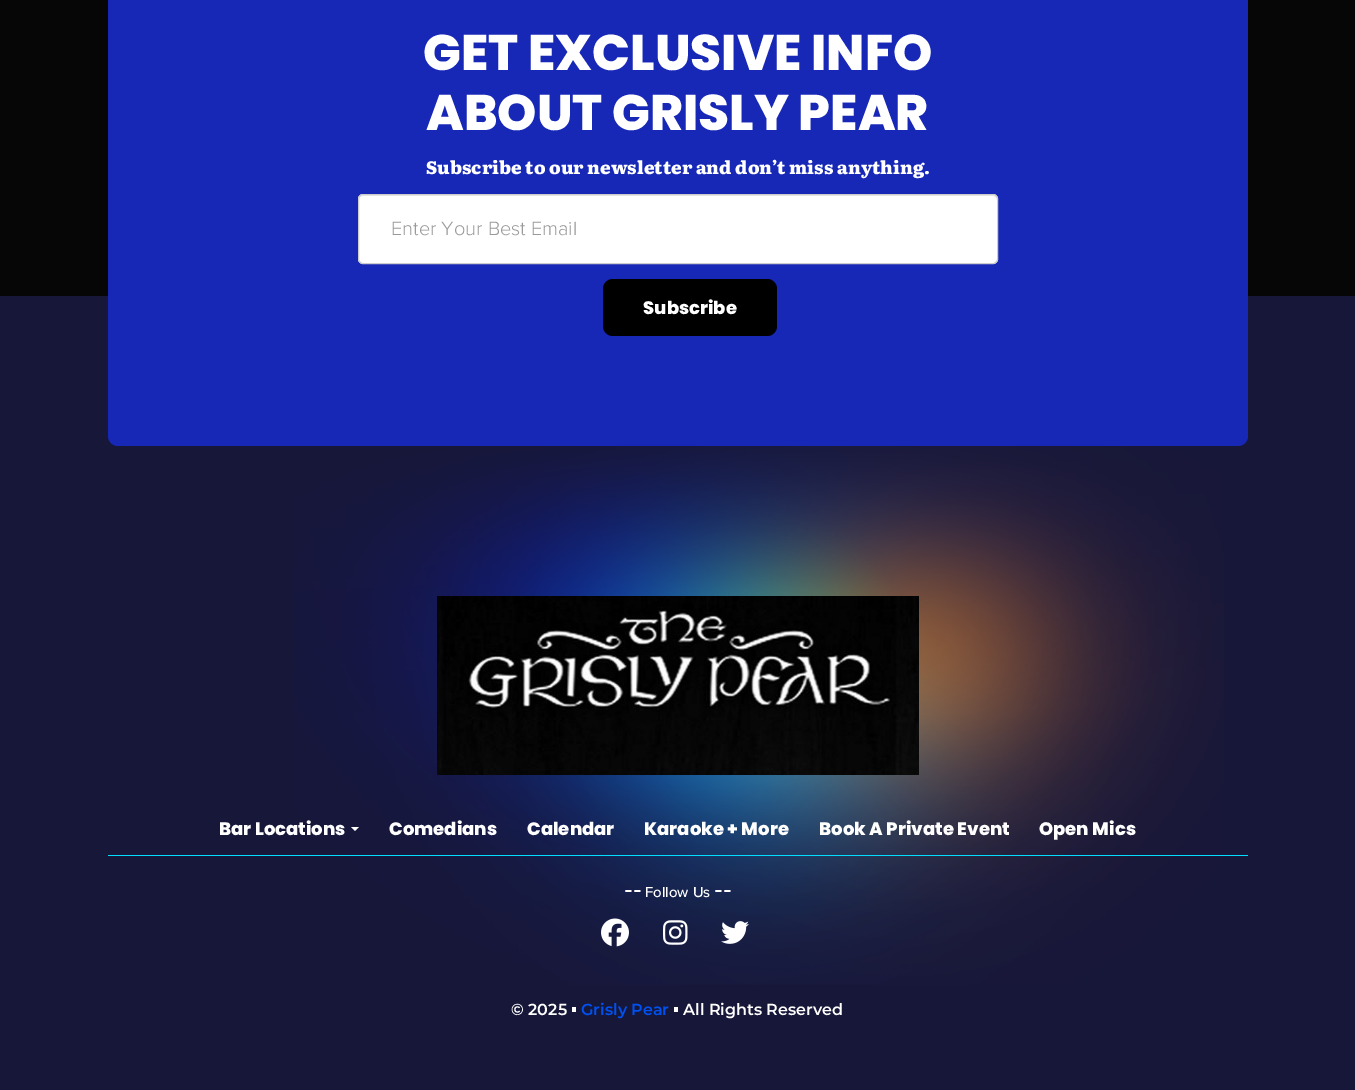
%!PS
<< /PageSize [1355 1090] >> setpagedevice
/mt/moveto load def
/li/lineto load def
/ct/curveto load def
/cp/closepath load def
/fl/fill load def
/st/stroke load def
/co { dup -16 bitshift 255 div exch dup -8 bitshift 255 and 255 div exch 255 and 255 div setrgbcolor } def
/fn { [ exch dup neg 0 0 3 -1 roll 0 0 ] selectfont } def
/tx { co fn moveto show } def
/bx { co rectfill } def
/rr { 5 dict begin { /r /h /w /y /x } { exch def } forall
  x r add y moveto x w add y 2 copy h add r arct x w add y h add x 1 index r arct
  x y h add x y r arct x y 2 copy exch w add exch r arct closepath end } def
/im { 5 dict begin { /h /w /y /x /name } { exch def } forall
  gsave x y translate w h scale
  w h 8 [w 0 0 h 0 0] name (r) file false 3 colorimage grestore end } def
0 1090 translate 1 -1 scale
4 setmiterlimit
0 0 1355 1090 16#060606 bx
0 296 1355 794 16#171739 bx
16#1727B6 co
108 -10 1140 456 10 rr fl
16#FFFFFF co
358 194 640 70 5 rr fl
16#ECECEC co
363 196 mt 993 196 li 995 196 997 198 997 200 ct 997 197 996 195 993 195 ct 363 195 li 360 195 359 197 359 200 ct 359 198 361 196 363 196 ct cp fl
16#CCCCCC co
358.5 194.5 639 69 4.5 rr st
16#000000 co
603 279 174 57 10 rr fl
(media/1.raw) 293 446 931 539 im
(media/2.raw) 437 596 482 179 im
108 855 1140 1 16#03DEFF bx
16#FFFFFF co
351 827 mt 359 827 li 355 831 li cp fl
(media/3.raw) 601 918 28 29 im
(media/4.raw) 663 920 25 25 im
(media/5.raw) 721 921 28 23 im
572 1007 4 5 16#FFFFFF bx
674 1007 4 5 16#FFFFFF bx
(GET EXCLUSIVE INFO) 423 70 /Poppins-ExtraBold 50 16#FFFFFF tx
(ABOUT GRISLY PEAR) 426 130 /Poppins-ExtraBold 50 16#FFFFFF tx
(Subscribe to our newsletter and don’t miss anything.) 426 174 /Literata-ExtraBold 18 16#FFFFFF tx
(Enter Your Best Email) 391 235 /ProximaNova-Light 20 16#999999 tx
(Subscribe) 643 314 /Poppins-ExtraBold 18 16#FFFFFF tx
(Bar Locations) 219 835 /Poppins-ExtraBold 18 16#FFFFFF tx
(Comedians) 389 835 /Poppins-ExtraBold 18 16#FFFFFF tx
(Calendar) 527 835 /Poppins-ExtraBold 18 16#FFFFFF tx
(Karaoke + More) 644 835 /Poppins-ExtraBold 18 16#FFFFFF tx
(Book A Private Event) 819 835 /Poppins-ExtraBold 18 16#FFFFFF tx
(Open Mics) 1039 835 /Poppins-ExtraBold 18 16#FFFFFF tx
(‐‐) 624 898 /LiberationSans-Regular 26 16#FFFFFF tx
(Follow Us) 645 897 /ProximaNova-Medium 15 16#FFFFFF tx
(‐‐) 714 898 /LiberationSans-Regular 26 16#FFFFFF tx
(© 2025) 511 1015 /Montserrat-SemiBold 16 16#FFFFFF tx
(Grisly Pear) 581 1015 /Montserrat-SemiBold 16 16#0051F2 tx
(All Rights Reserved) 683 1015 /Montserrat-SemiBold 16 16#FFFFFF tx
showpage
